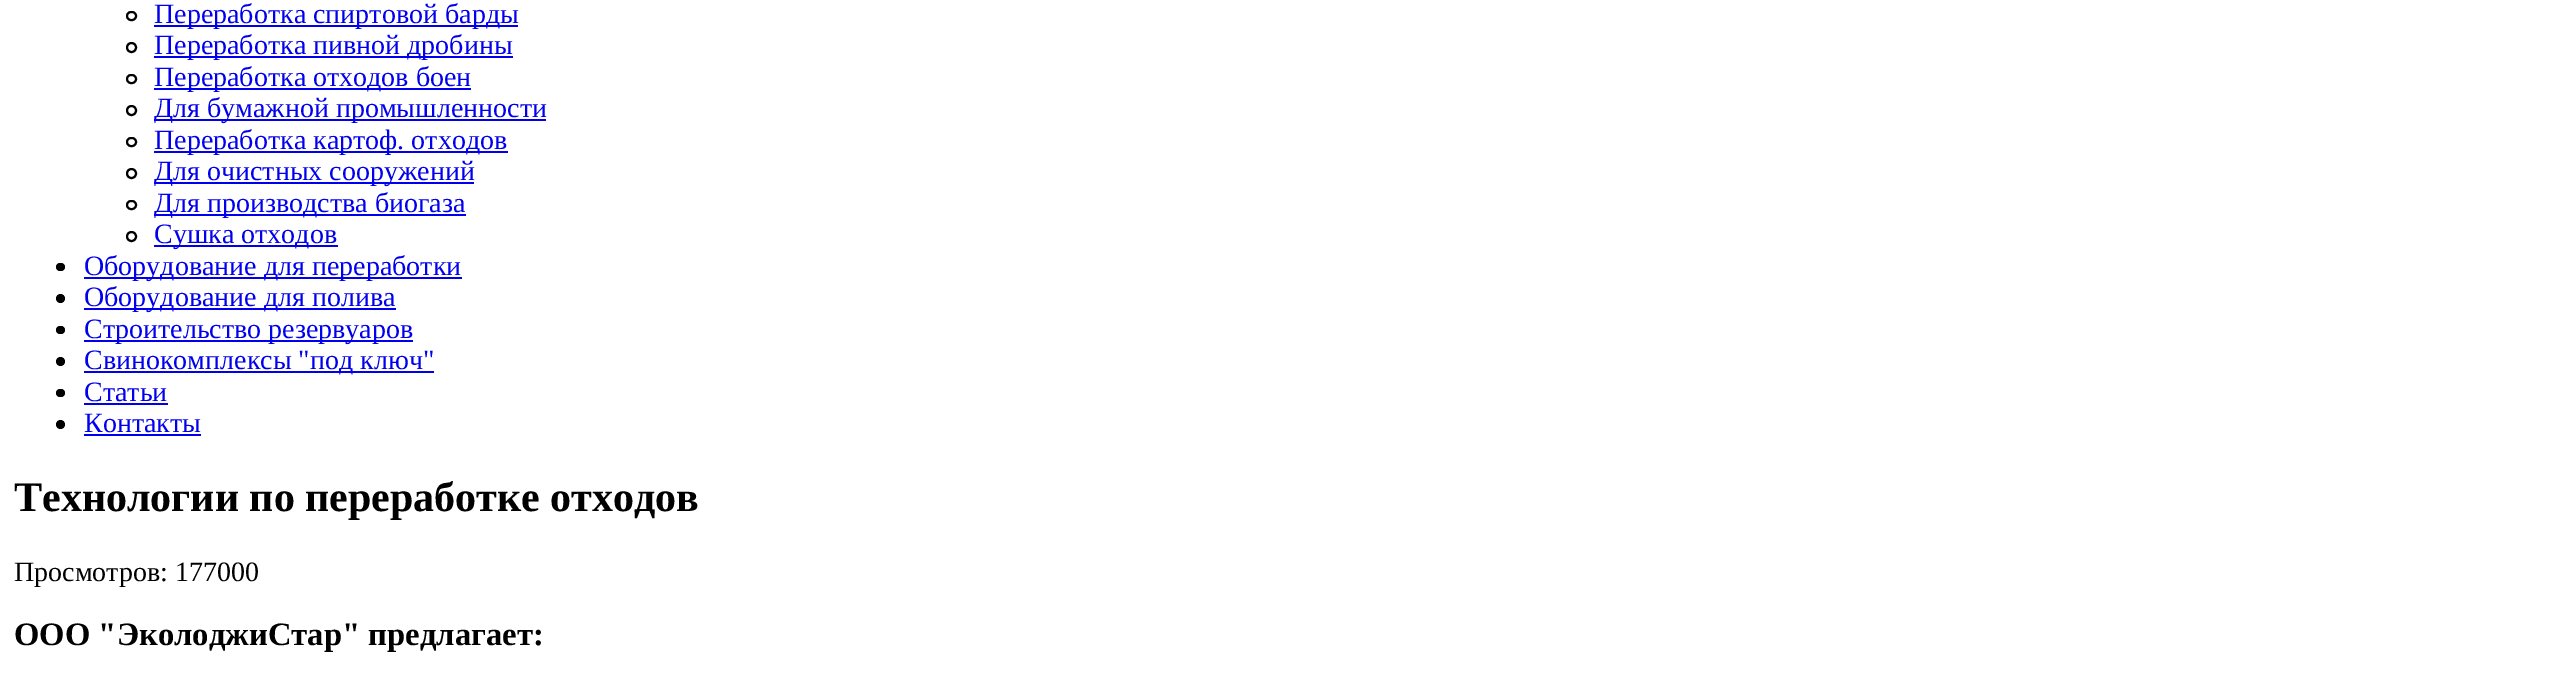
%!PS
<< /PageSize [2560 680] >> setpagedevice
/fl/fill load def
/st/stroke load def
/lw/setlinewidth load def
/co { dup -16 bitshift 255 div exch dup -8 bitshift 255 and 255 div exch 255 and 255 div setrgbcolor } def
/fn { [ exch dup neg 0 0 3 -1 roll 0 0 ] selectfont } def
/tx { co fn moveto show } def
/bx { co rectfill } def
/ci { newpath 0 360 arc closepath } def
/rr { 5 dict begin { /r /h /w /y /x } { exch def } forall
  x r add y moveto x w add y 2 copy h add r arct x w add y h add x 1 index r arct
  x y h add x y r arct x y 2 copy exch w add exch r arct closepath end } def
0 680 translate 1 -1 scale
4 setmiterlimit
0 0 2560 680 16#FFFFFF bx
16#000000 co
2 lw
127 12 9 8 4 rr st
154 25 364 2 16#0000EE bx
16#000000 co
131.5 47.5 4.5 ci st
154 56 359 2 16#0000EE bx
16#000000 co
127 75 9 8 4 rr st
154 88 317 2 16#0000EE bx
16#000000 co
131.5 110.5 4.5 ci st
154 119 392 2 16#0000EE bx
16#000000 co
127 138 9 8 4 rr st
154 151 354 2 16#0000EE bx
16#000000 co
131.5 173.5 4.5 ci st
154 182 320 2 16#0000EE bx
16#000000 co
127 201 9 8 4 rr st
154 214 312 2 16#0000EE bx
16#000000 co
131.5 236.5 4.5 ci st
154 245 184 2 16#0000EE bx
16#000000 co
56 263 9 8 4 rr fl
84 277 378 2 16#0000EE bx
16#000000 co
60.5 298.5 4.5 ci fl
84 308 312 2 16#0000EE bx
16#000000 co
56 326 9 8 4 rr fl
84 340 329 2 16#0000EE bx
16#000000 co
60.5 361.5 4.5 ci fl
84 371 350 2 16#0000EE bx
16#000000 co
56 389 9 8 4 rr fl
84 403 84 2 16#0000EE bx
16#000000 co
60.5 424.5 4.5 ci fl
84 434 117 2 16#0000EE bx
(Переработка спиртовой барды) 154 23 /LiberationSerif-Regular 28 16#0000EE tx
(Переработка пивной дробины) 154 54 /LiberationSerif-Regular 28 16#0000EE tx
(Переработка отходов боен) 154 86 /LiberationSerif-Regular 28 16#0000EE tx
(Для бумажной промышленности) 154 117 /LiberationSerif-Regular 28 16#0000EE tx
(Переработка картоф. отходов) 154 149 /LiberationSerif-Regular 28 16#0000EE tx
(Для очистных сооружений) 154 180 /LiberationSerif-Regular 28 16#0000EE tx
(Для производства биогаза) 154 212 /LiberationSerif-Regular 28 16#0000EE tx
(Сушка отходов) 154 243 /LiberationSerif-Regular 28 16#0000EE tx
(Оборудование для переработки) 84 275 /LiberationSerif-Regular 28 16#0000EE tx
(Оборудование для полива) 84 306 /LiberationSerif-Regular 28 16#0000EE tx
(Строительство резервуаров) 84 338 /LiberationSerif-Regular 28 16#0000EE tx
(Свинокомплексы "под ключ") 84 369 /LiberationSerif-Regular 28 16#0000EE tx
(Статьи) 84 401 /LiberationSerif-Regular 28 16#0000EE tx
(Контакты) 84 432 /LiberationSerif-Regular 28 16#0000EE tx
(Технологии по переработке отходов) 14 511 /LiberationSerif-Bold 42 16#000000 tx
(Просмотров: 177000) 14 581 /LiberationSerif-Regular 28 16#000000 tx
(ООО "ЭколоджиСтар" предлагает:) 14 645 /LiberationSerif-Bold 32.7 16#000000 tx
showpage
